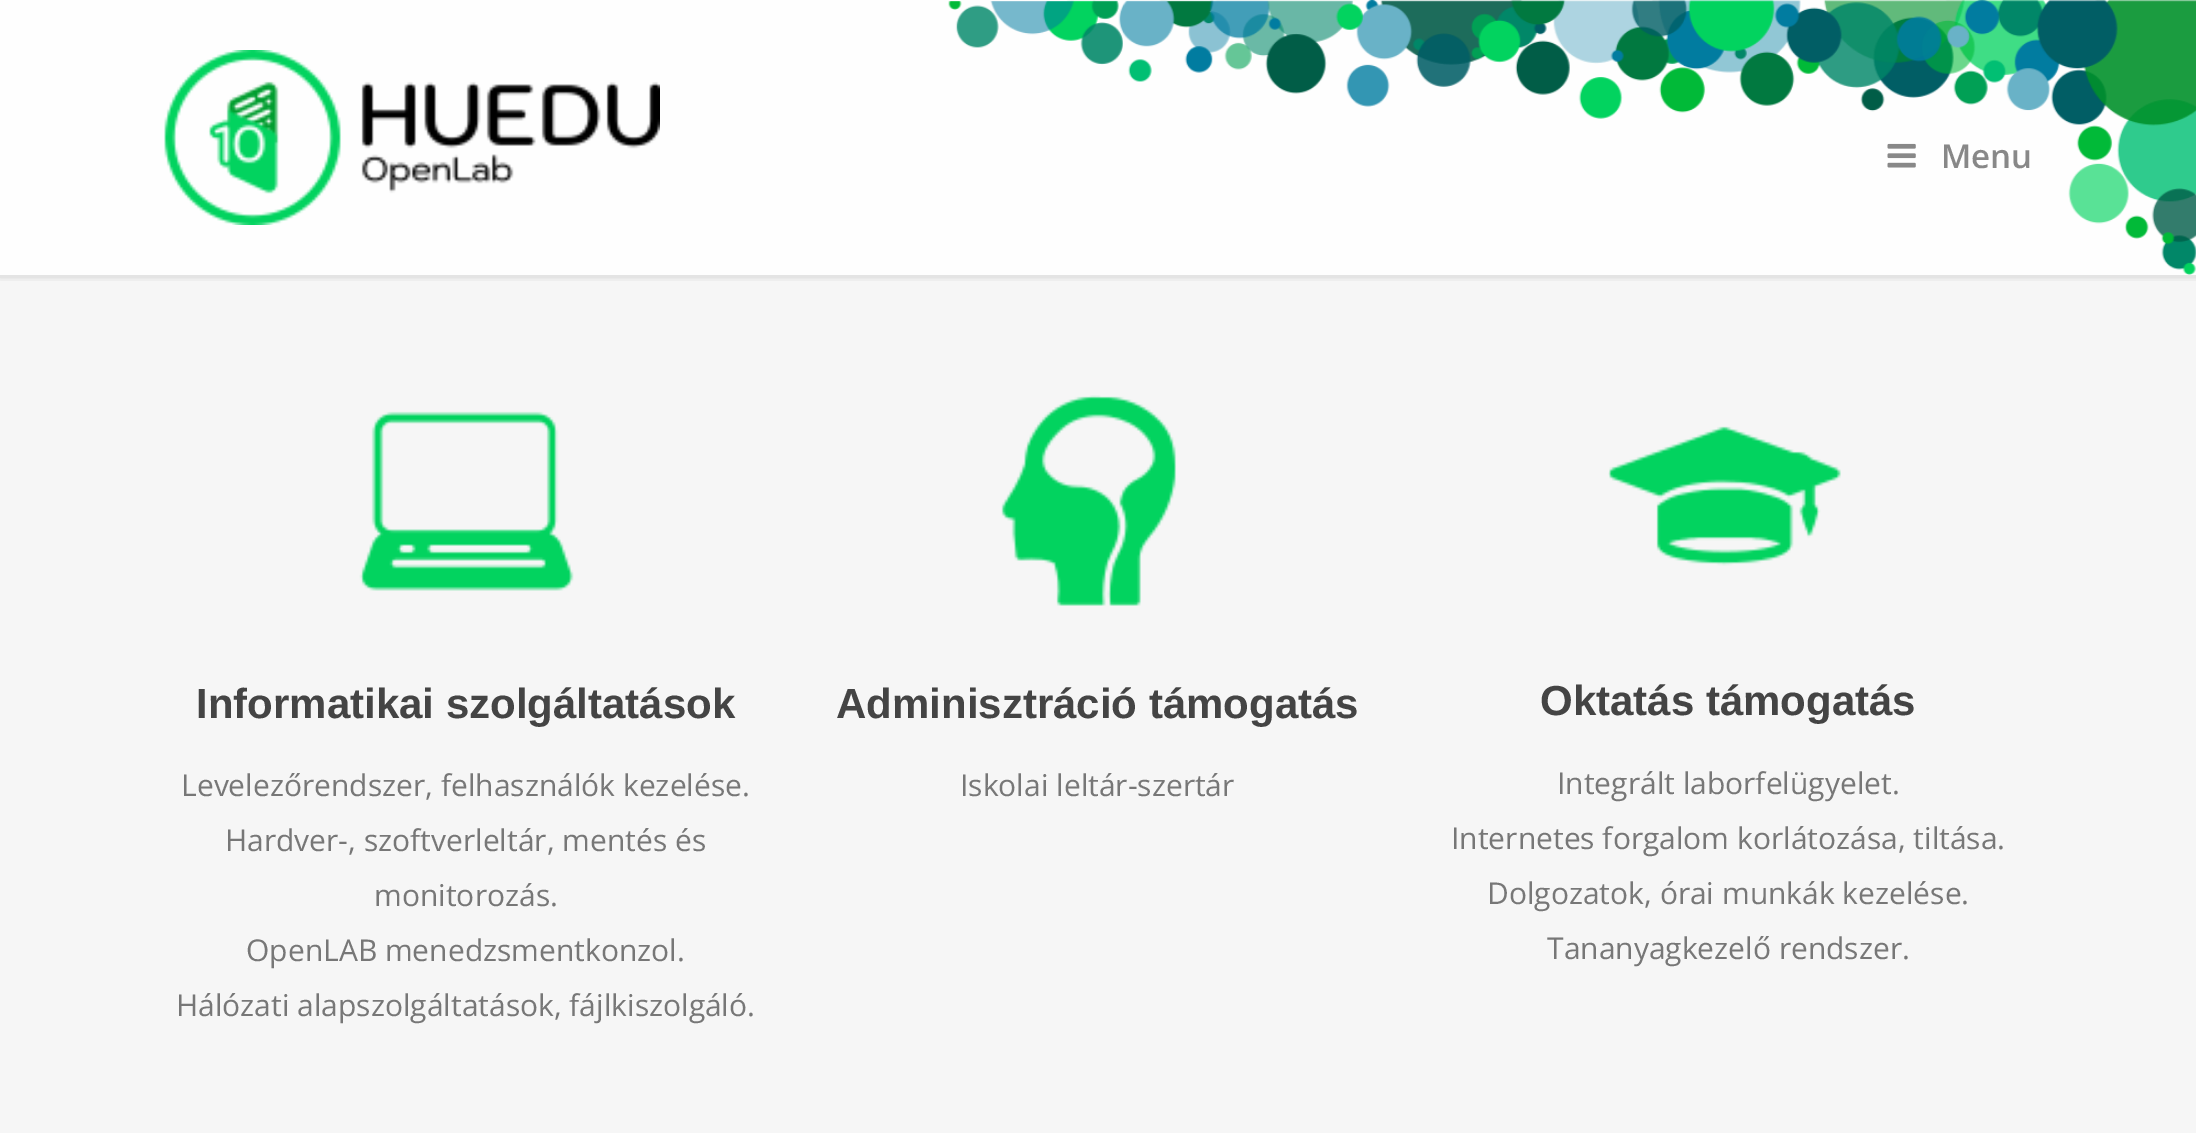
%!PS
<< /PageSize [2196 1133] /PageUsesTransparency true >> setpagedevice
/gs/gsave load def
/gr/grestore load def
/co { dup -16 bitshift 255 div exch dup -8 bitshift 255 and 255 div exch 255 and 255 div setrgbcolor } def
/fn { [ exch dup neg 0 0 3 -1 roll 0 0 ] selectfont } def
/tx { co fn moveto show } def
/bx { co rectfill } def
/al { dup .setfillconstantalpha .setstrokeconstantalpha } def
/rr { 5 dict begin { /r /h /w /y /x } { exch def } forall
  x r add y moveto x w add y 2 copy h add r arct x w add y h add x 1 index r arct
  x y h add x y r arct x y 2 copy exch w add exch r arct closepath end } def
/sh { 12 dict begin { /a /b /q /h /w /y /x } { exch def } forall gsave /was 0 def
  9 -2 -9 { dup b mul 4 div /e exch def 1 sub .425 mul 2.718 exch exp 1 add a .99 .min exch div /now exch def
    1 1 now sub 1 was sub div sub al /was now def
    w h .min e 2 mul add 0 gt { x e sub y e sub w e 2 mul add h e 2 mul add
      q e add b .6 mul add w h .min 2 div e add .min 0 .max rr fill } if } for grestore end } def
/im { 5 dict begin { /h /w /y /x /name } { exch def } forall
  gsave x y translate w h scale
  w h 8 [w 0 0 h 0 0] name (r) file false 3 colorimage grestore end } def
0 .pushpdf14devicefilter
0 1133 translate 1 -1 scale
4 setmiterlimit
0 0 2196 1133 16#F6F6F6 bx
gs
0 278 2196 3 rectclip
16#000000 co
0 0 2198 278 0 4 .1 sh
gr
0.9 al
0 0 2196 275 16#FFFFFF bx
1 al
(media/1.raw) 948 0 1248 275 im
0 275 2196 3 16#E4E4E4 bx
(media/2.raw) 164 50 496 175 im
(media/3.raw) 1887 143 29 25 im
(media/4.raw) 359 411 215 180 im
(media/5.raw) 1001 395 175 211 im
(media/6.raw) 1608 426 233 140 im
(Menu) 1941 168 /OpenSans-SemiBold 33 16#888888 tx
(Informatikai szolgáltatások) 196 718 /LiberationSans-Bold 42 16#444444 tx
(Levelezőrendszer, felhasználók kezelése.) 181 796 /OpenSans-Regular 30 16#777777 tx
(Hardver-, szoftverleltár, mentés és) 225 851 /OpenSans-Regular 30 16#777777 tx
(monitorozás.) 374 906 /OpenSans-Regular 30 16#777777 tx
(OpenLAB menedzsmentkonzol.) 246 961 /OpenSans-Regular 30 16#777777 tx
(Hálózati alapszolgáltatások, fájlkiszolgáló.) 176 1016 /OpenSans-Regular 30 16#777777 tx
(Adminisztráció támogatás) 836 718 /LiberationSans-Bold 42 16#444444 tx
(Iskolai leltár-szertár) 960 796 /OpenSans-Regular 30 16#777777 tx
(Oktatás támogatás) 1540 715 /LiberationSans-Bold 42 16#444444 tx
(Integrált laborfelügyelet.) 1557 794 /OpenSans-Regular 30 16#777777 tx
(Internetes forgalom korlátozása, tiltása.) 1451 849 /OpenSans-Regular 30 16#777777 tx
(Dolgozatok, órai munkák kezelése.) 1487 904 /OpenSans-Regular 30 16#777777 tx
(Tananyagkezelő rendszer.) 1547 959 /OpenSans-Regular 30 16#777777 tx
.poppdf14devicefilter showpage
